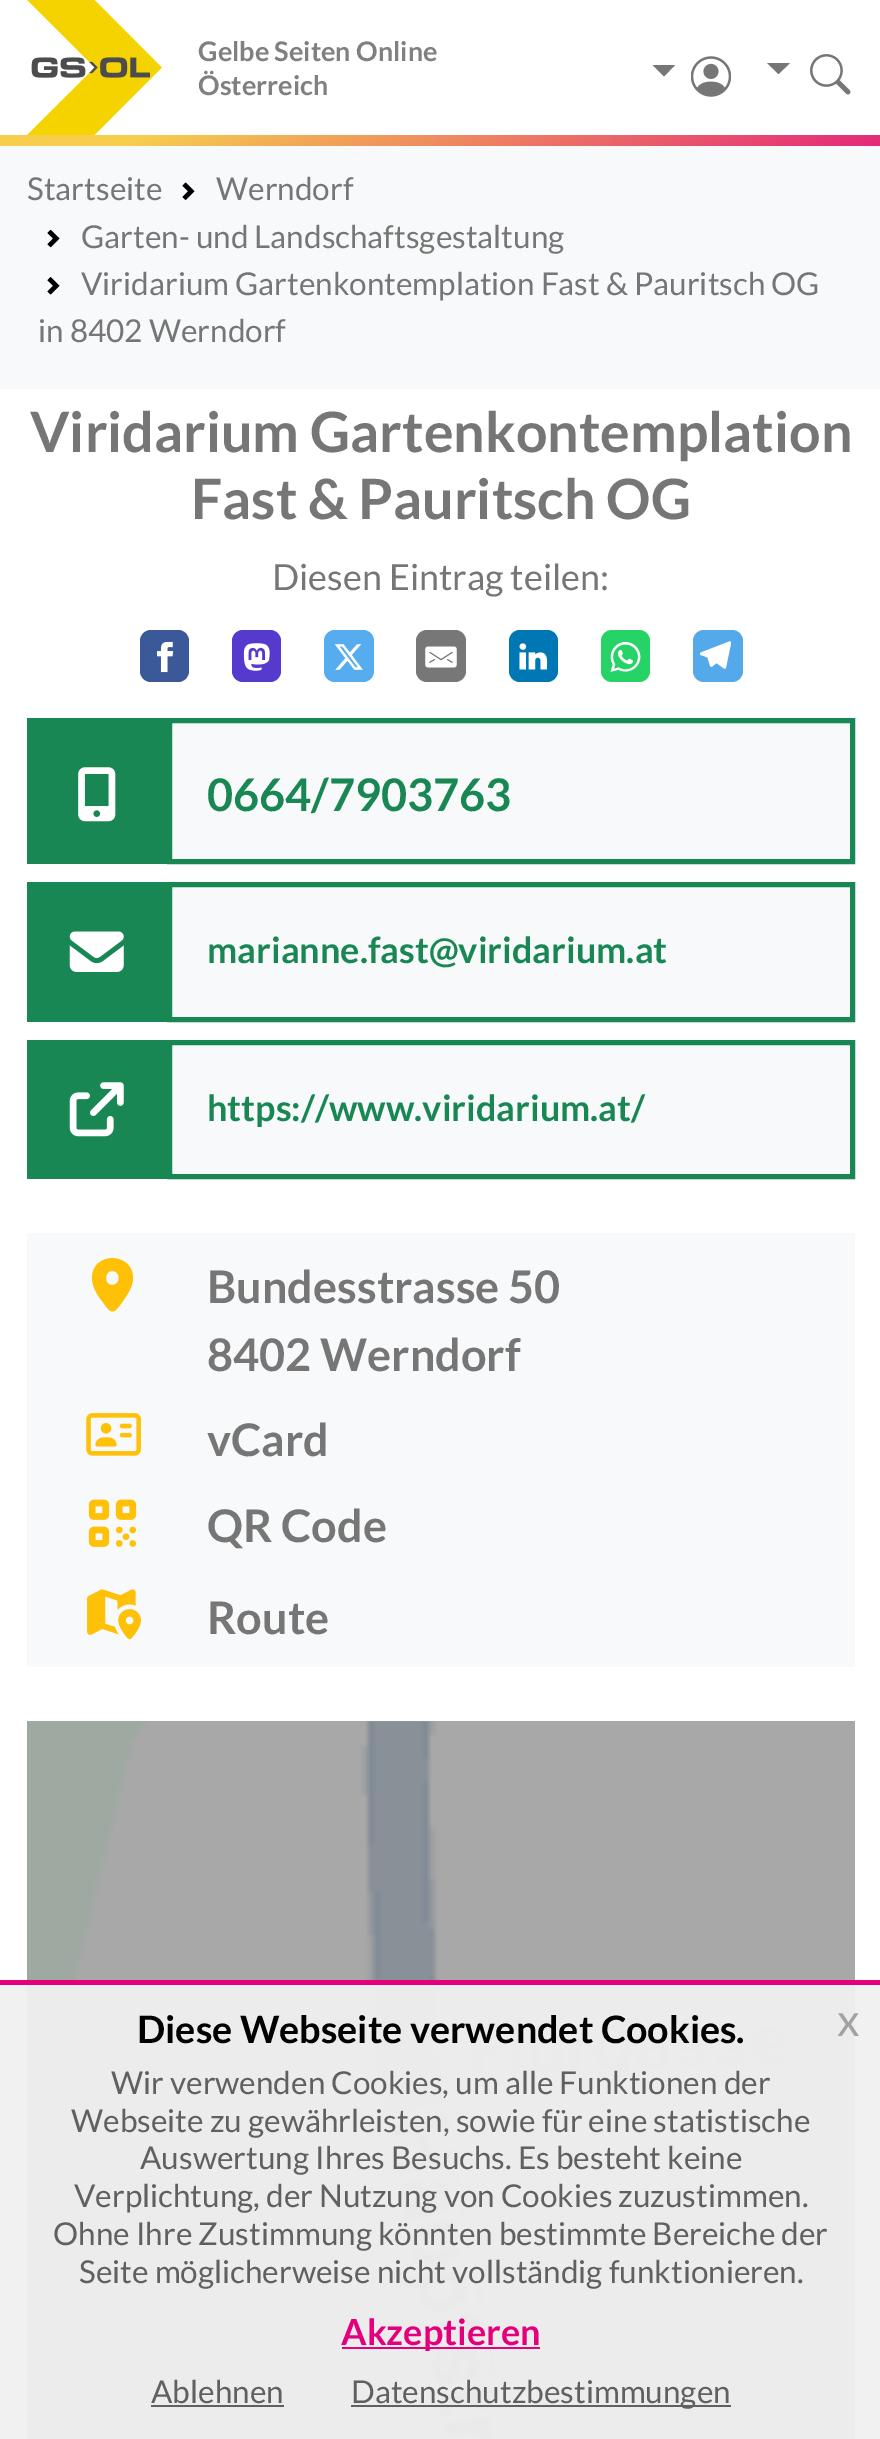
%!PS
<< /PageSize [880 2439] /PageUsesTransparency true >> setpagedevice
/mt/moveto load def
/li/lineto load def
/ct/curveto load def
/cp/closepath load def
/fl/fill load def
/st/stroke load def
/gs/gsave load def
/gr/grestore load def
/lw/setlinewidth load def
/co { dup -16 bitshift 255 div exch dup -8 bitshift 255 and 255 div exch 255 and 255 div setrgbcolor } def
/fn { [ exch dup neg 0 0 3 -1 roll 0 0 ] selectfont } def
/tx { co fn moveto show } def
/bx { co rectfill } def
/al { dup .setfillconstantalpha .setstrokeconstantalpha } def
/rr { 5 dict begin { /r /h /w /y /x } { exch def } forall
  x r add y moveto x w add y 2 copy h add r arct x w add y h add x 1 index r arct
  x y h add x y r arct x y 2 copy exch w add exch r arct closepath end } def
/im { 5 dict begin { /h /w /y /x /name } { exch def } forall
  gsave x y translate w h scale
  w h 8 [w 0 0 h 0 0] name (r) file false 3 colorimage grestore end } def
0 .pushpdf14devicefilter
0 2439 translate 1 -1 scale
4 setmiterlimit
0 0 880 2439 16#FFFFFF bx
(media/1.raw) 27 0 135 135 im
16#767676 co
652.5 65 mt 675 65 li 664 76.5 li cp fl
(media/2.raw) 691 56 40 41 im
767 63 mt 790 63 li 778.5 74 li cp fl
(media/3.raw) 810 54 41 41 im
gs 0 135 mt 880 135 li 880 146 li 0 146 li cp clip newpath
<< /ShadingType 2 /ColorSpace /DeviceRGB /Coords [360 -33 538 349] /Extend [true true] /Function << /FunctionType 3 /Domain [0 1] /Functions [<< /FunctionType 2 /Domain [0 1] /C0 [.965 .804 .302] /C1 [.965 .804 .302] /N 1 >> << /FunctionType 2 /Domain [0 1] /C0 [.965 .804 .302] /C1 [.886 .078 .498] /N 1 >>] /Bounds [.15] /Encode [0 1 0 1] >> >> shfill gr
0 146 880 243 16#F8F9FA bx
(media/4.raw) 182 182 13 18 im
(media/5.raw) 47 230 13 18 im
(media/6.raw) 47 277 13 18 im
16#3B5998 co
140 630 49 52 11 rr fl
(media/7.raw) 157 641 17 32 im
16#563ACD co
232 630 49 52 11 rr fl
(media/8.raw) 243 643 27 28 im
16#55ACEE co
324 630 50 52 11 rr fl
(media/9.raw) 334 644 29 26 im
16#777777 co
416 630 50 52 11 rr fl
(media/10.raw) 425 646 32 22 im
16#0077B5 co
509 630 49 52 11 rr fl
(media/11.raw) 519 643 29 27 im
16#25D366 co
601 630 49 52 11 rr fl
(media/12.raw) 610 641 31 31 im
16#54A9EB co
693 630 50 52 11 rr fl
(media/13.raw) 700 641 31 28 im
27 718 140 146 16#198754 bx
(media/14.raw) 78 767 38 55 im
16#F8F9FA co
169.5 720.5 mt 852.5 720.5 li 852.5 861.5 li 169.5 861.5 li cp gs fl gr
16#198754 co
5 lw
st
27 882 140 140 16#198754 bx
(media/15.raw) 69 931 55 41 im
16#F8F9FA co
169.5 884.5 mt 852.5 884.5 li 852.5 1019.5 li 169.5 1019.5 li cp gs fl gr
16#198754 co
st
27 1040 140 139 16#198754 bx
(media/16.raw) 69 1082 55 55 im
16#F8F9FA co
169.5 1042.5 mt 852.5 1042.5 li 852.5 1176.5 li 169.5 1176.5 li cp gs fl gr
16#198754 co
st
27 1233 828 434 16#F8F9FA bx
16#FFC107 co
92 1278 mt 92 1251 133 1252 133 1278 ct 133 1286 128 1294 123 1301 ct 113 1315 112 1315 102 1301 ct 97 1295 92 1286 92 1278 ct cp 112 1285 mt 121 1285 121 1271 112 1271 ct 104 1271 104 1285 112 1285 ct cp fl
(media/17.raw) 86 1413 55 43 im
(media/18.raw) 88 1499 49 48 im
(media/19.raw) 87 1589 54 51 im
(media/20.raw) 27 1721 828 718 im
0.95 al
0 1985 880 454 16#F0F0F0 bx
1 al
0 1980 880 5 16#E4007C bx
342 2347 198 2 16#E4007C bx
151 2405 133 2 16#606060 bx
351 2405 380 2 16#606060 bx
(Gelbe Seiten Online) 198 61 /Lato-Bold 27 16#808080 tx
(Österreich) 198 95 /Lato-Bold 27 16#808080 tx
(Startseite) 27 200 /Lato-Regular 31.5 16#767676 tx
(Werndorf) 216 200 /Lato-Regular 31.5 16#767676 tx
(Garten- und Landschaftsgestaltung) 81 248 /Lato-Regular 31.5 16#767676 tx
(Viridarium Gartenkontemplation Fast & Pauritsch OG) 81 295 /Lato-Regular 31.5 16#767676 tx
(in 8402 Werndorf) 38 342 /Lato-Regular 31.5 16#767676 tx
(Viridarium Gartenkontemplation) 30 452 /Lato-Bold 55.6 16#767676 tx
(Fast & Pauritsch OG) 191 519 /Lato-Bold 55.6 16#767676 tx
(Diesen Eintrag teilen:) 272 590 /Lato-Regular 36 16#767676 tx
(0664/7903763) 207 811 /Lato-Bold 45 16#198754 tx
(marianne.fast@viridarium.at) 207 963 /Lato-Bold 36 16#198754 tx
(https://www.viridarium.at/) 207 1121 /Lato-Bold 36 16#198754 tx
(Bundesstrasse 50) 207 1303 /Lato-Bold 45 16#767676 tx
(8402 Werndorf) 207 1371 /Lato-Bold 45 16#767676 tx
(vCard) 207 1456 /Lato-Bold 45 16#767676 tx
(QR Code) 207 1542 /Lato-Bold 45 16#767676 tx
(Route) 207 1634 /Lato-Bold 45 16#767676 tx
(Diese Webseite verwendet Cookies.) 137 2043 /Lato-Bold 37.75 16#000000 tx
(x) 837 2036 /Lato-Regular 45 16#A2A2A2 tx
(Wir verwenden Cookies, um alle Funktionen der) 111 2094 /Lato-Regular 31.5 16#606060 tx
(Webseite zu gewährleisten, sowie für eine statistische) 71 2132 /Lato-Regular 31.5 16#606060 tx
(Auswertung Ihres Besuchs. Es besteht keine) 140 2169 /Lato-Regular 31.5 16#606060 tx
(Verplichtung, der Nutzung von Cookies zuzustimmen.) 74 2207 /Lato-Regular 31.5 16#606060 tx
(Ohne Ihre Zustimmung könnten bestimmte Bereiche der) 53 2245 /Lato-Regular 31.5 16#606060 tx
(Seite möglicherweise nicht vollständig funktionieren.) 79 2283 /Lato-Regular 31.5 16#606060 tx
(Akzeptieren) 341 2345 /Lato-Bold 36 16#E4007C tx
(Ablehnen) 151 2403 /Lato-Regular 31.5 16#606060 tx
(Datenschutzbestimmungen) 351 2403 /Lato-Regular 31.5 16#606060 tx
.poppdf14devicefilter showpage
